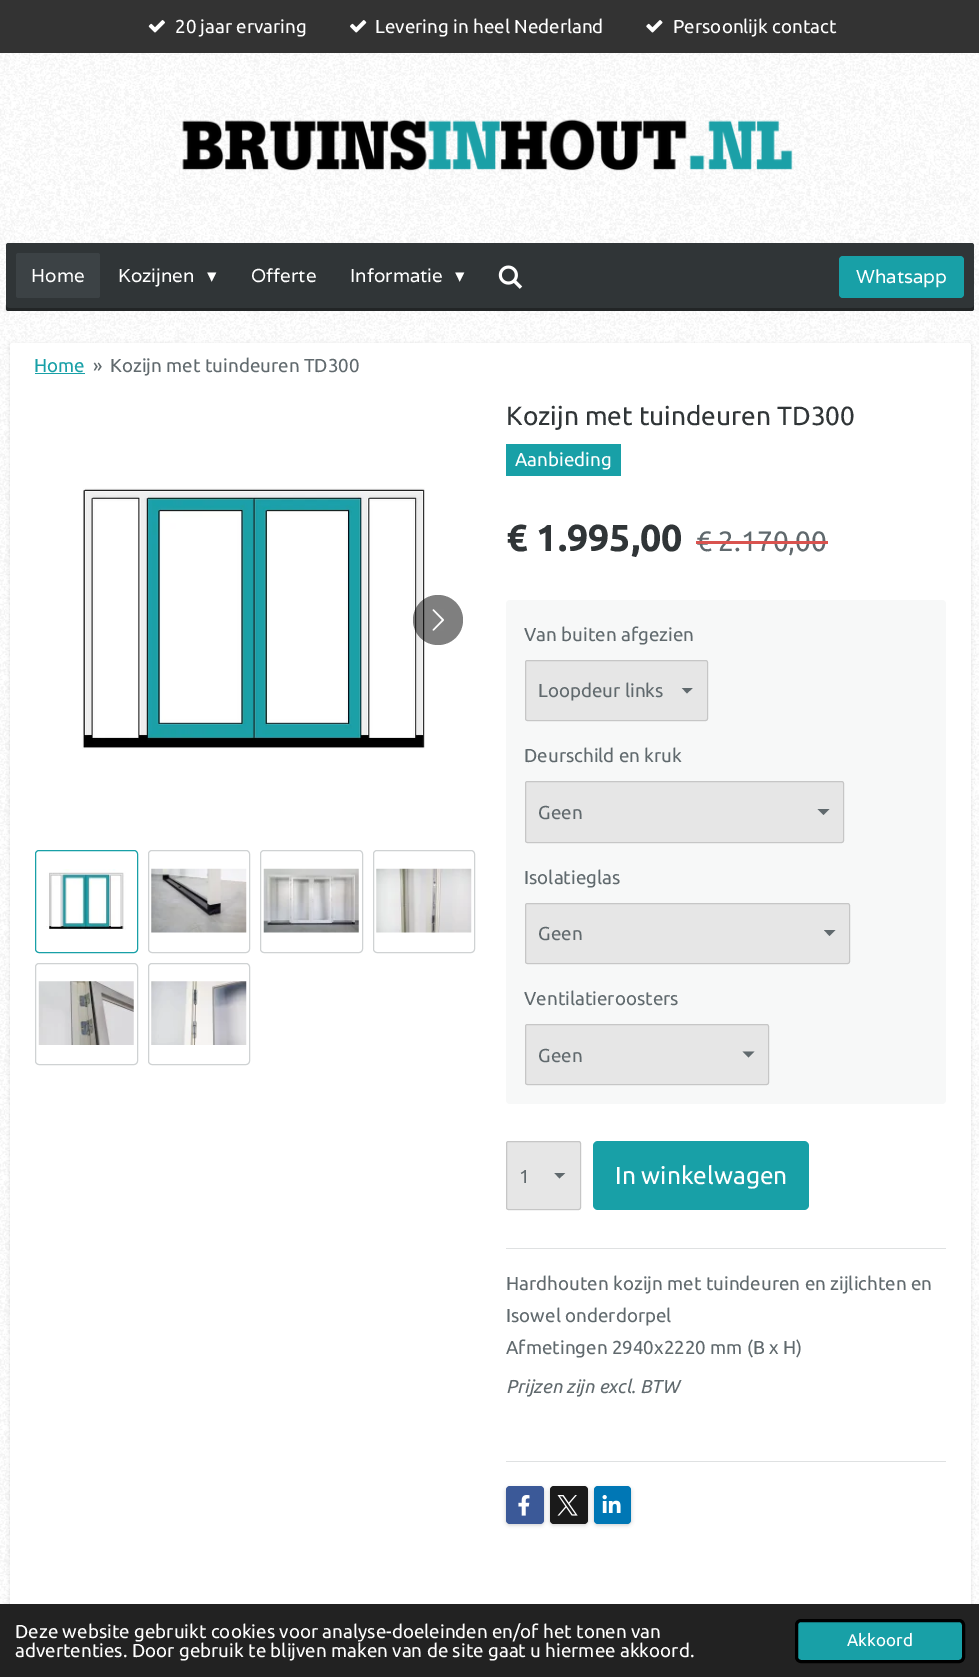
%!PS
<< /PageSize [979 1677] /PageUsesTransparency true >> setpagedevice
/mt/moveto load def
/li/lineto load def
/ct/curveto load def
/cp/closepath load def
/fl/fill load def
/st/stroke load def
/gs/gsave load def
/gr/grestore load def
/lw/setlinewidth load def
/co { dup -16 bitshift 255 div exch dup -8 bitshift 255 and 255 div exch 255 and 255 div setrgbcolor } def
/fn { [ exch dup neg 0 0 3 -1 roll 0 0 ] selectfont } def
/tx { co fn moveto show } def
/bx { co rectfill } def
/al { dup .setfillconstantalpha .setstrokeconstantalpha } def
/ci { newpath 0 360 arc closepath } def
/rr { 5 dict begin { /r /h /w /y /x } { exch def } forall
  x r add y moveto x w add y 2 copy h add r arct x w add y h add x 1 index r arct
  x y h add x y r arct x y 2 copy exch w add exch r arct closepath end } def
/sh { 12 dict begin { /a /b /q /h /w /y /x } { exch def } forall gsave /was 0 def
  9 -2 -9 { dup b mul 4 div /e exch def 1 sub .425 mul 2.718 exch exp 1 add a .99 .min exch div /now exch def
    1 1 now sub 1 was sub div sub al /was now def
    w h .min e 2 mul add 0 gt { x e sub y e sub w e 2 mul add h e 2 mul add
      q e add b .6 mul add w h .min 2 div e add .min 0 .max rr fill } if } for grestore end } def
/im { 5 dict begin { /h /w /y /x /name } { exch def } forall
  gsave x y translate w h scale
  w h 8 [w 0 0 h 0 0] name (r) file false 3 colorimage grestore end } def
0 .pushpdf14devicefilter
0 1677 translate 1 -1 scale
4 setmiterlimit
0 0 979 1677 16#FFFFFF bx
0 0 979 53 16#333333 bx
(media/1.raw) 148 20 17 13 im
(media/2.raw) 350 20 17 13 im
(media/3.raw) 646 20 17 13 im
(media/17.raw) 0 53 979 1551 im
(media/4.raw) 182 119 611 52 im
16#303537 co
6 243 968 68 2.5 rr fl
0.3 al
16#000000 co
6 305 mt 6 307 5 311 8 311 ct 972 311 li 974 310 li 974 305 li 974 306 973 308 971 308 ct 9 308 li 7 308 6 306 6 305 ct cp fl
1 al
16#3C4245 co
16 253 84 45 2.5 rr fl
(media/5.raw) 498 265 25 24 im
16#18A0A7 co
839 256 125 42 4 rr fl
16#000000 co
10 344 961 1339 0 2 .1 sh
16#FFFFFF co
10 343 961 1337 2.5 rr fl
35 373 50 1 16#18A0A7 bx
506 444 115 32 16#18A0A7 bx
(media/6.raw) 82 488 343 261 im
0.5 al
16#000000 co
438 620 25 ci fl
1 al
(media/7.raw) 432 609 12 22 im
16#18A0A7 co
35.5 850.5 102 102 3.5 rr st
(media/8.raw) 46 869 80 61 im
16#CFD2D3 co
148.5 850.5 101 102 3.5 rr st
(media/9.raw) 151 868 96 65 im
260.5 850.5 102 102 3.5 rr st
(media/10.raw) 263 868 96 65 im
373.5 850.5 101 102 3.5 rr st
(media/11.raw) 376 868 96 65 im
35.5 963.5 102 101 3.5 rr st
(media/12.raw) 38 981 96 64 im
148.5 963.5 101 101 3.5 rr st
(media/13.raw) 151 981 96 64 im
16#F7F8F8 co
506 600 440 504 4 rr fl
16#E6E6E6 co
525 660 183 61 2.5 rr fl
gs
681 688 13 6 rectclip
16#60696D co
687 693.5 mt 681.5 687.5 li 693 687.5 li cp fl
gr
0.5 al
16#A6A6A6 co
525.5 660.5 182 60 2 rr st
1 al
16#E6E6E6 co
525 781 319 62 2.5 rr fl
16#60696D co
823.5 815 mt 817.5 809 li 829.5 809 li cp fl
0.5 al
16#A6A6A6 co
525.5 781.5 318 61 2 rr st
1 al
16#E6E6E6 co
525 903 325 61 2.5 rr fl
16#60696D co
829.5 936 mt 824 930 li 835.5 930 li cp fl
0.5 al
16#A6A6A6 co
525.5 903.5 324 60 2 rr st
1 al
16#E6E6E6 co
525 1024 244 61 2.5 rr fl
16#60696D co
748.5 1057.5 mt 742.5 1051.5 li 754.5 1051.5 li cp fl
0.5 al
16#A6A6A6 co
525.5 1024.5 243 60 2 rr st
1 al
16#E6E6E6 co
506 1141 75 69 2.5 rr fl
gs
554 1173 12 6 rectclip
16#60696D co
559.5 1178.5 mt 554 1172.5 li 565.5 1172.5 li cp fl
gr
0.5 al
16#A6A6A6 co
506.5 1141.5 74 68 2 rr st
1 al
16#18A0A7 co
593 1141 216 69 5 rr fl
506 1248 440 1 16#DFE1E2 bx
506 1461 440 1 16#DFE1E2 bx
16#000000 co
506 1488 38 37 4 2 .2 sh
16#3B5998 co
506 1486 38 38 4 rr fl
(media/14.raw) 518 1495 12 21 im
16#000000 co
550 1488 38 37 4 2 .2 sh
16#1A1A1A co
550 1486 38 38 4 rr fl
(media/15.raw) 557 1495 21 21 im
16#000000 co
594 1488 37 37 4 2 .2 sh
16#0077B5 co
594 1486 37 38 4 rr fl
(media/16.raw) 602 1495 19 18 im
0 1604 979 73 16#222222 bx
16#18A0A7 co
796.5 1620.5 167 41 4.5 rr gs fl gr
16#000000 co
3 lw
st
(20 jaar ervaring) 175 33 /Ubuntu-Regular 18.75 16#FFFFFF tx
(Levering in heel Nederland) 375 33 /Ubuntu-Regular 18.75 16#FFFFFF tx
(Persoonlijk contact) 673 33 /Ubuntu-Regular 18.75 16#FFFFFF tx
(Home) 31 282 /Varela-Regular 18.75 16#FFFFFF tx
(Kozijnen) 118 282 /Varela-Regular 18.75 16#FFFFFF tx
(▾) 207 282 /DejaVuSans-Regular 18.75 16#FFFFFF tx
(Offerte) 251 282 /Varela-Regular 18.75 16#FFFFFF tx
(Informatie) 350 282 /Varela-Regular 18.75 16#FFFFFF tx
(▾) 455 282 /DejaVuSans-Regular 18.75 16#FFFFFF tx
(Whatsapp) 856 283 /Varela-Regular 18.75 16#FFFFFF tx
(Home) 34 372 /Ubuntu-Regular 18.75 16#18A0A7 tx
(») 93 372 /Ubuntu-Regular 18.75 16#60696D tx
(Kozijn met tuindeuren TD300) 110 372 /Ubuntu-Regular 18.75 16#60696D tx
(Kozijn met tuindeuren TD300) 506 425 /Ubuntu-Regular 26.25 16#303537 tx
(Aanbieding) 515 466 /Ubuntu-Regular 18.75 16#FFFFFF tx
(€ 1.995,00) 506 551 /Ubuntu-Bold 37.5 16#303537 tx
(€ 2.170,00) 696 551 /Ubuntu-Regular 28 16#60696D tx
696 541 132 3 16#D9534F bx
(Van buiten afgezien) 524 641 /Ubuntu-Regular 18.75 16#60696D tx
(Loopdeur links) 538 697 /Ubuntu-Regular 18.75 16#60696D tx
(Deurschild en kruk) 524 762 /Ubuntu-Regular 18.75 16#60696D tx
(Geen) 538 819 /Ubuntu-Regular 18.75 16#60696D tx
(Isolatieglas) 524 884 /Ubuntu-Regular 18.75 16#60696D tx
(Geen) 538 940 /Ubuntu-Regular 18.75 16#60696D tx
(Ventilatieroosters) 524 1005 /Ubuntu-Regular 18.75 16#60696D tx
(Geen) 538 1062 /Ubuntu-Regular 18.75 16#60696D tx
(1) 519 1183 /Ubuntu-Regular 18.75 16#60696D tx
(In winkelwagen) 615 1184 /Ubuntu-Regular 24.5 16#FFFFFF tx
(Hardhouten kozijn met tuindeuren en zijlichten en) 506 1290 /Ubuntu-Regular 18.75 16#60696D tx
(Isowel onderdorpel) 506 1322 /Ubuntu-Regular 18.75 16#60696D tx
(Afmetingen 2940x2220 mm \(B x H\)) 506 1354 /Ubuntu-Regular 18.75 16#60696D tx
(Prijzen zijn excl. BTW) 506 1393 /Ubuntu-Italic 18.75 16#60696D tx
(Deze website gebruikt cookies voor analyse-doeleinden en/of het tonen van) 15 1638 /Ubuntu-Regular 18.75 16#FFFFFF tx
(advertenties. Door gebruik te blijven maken van de site gaat u hiermee akkoord.) 15 1657 /Ubuntu-Regular 18.75 16#FFFFFF tx
(Akkoord) 847 1646 /Ubuntu-Regular 17 16#FFFFFF tx
.poppdf14devicefilter showpage
